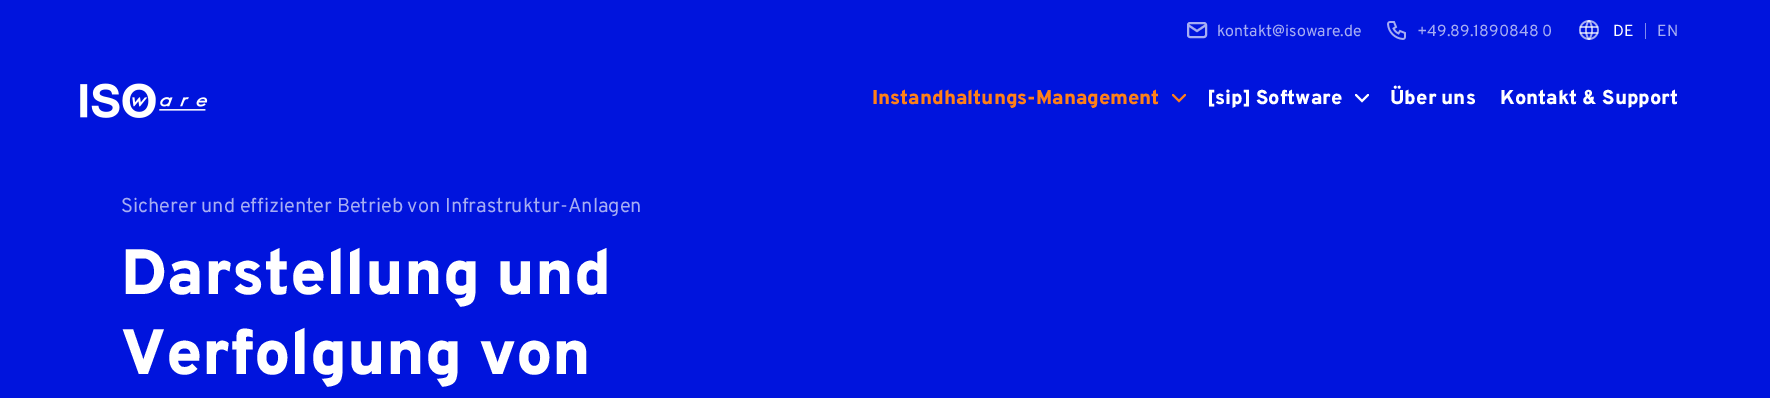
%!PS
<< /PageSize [1770 398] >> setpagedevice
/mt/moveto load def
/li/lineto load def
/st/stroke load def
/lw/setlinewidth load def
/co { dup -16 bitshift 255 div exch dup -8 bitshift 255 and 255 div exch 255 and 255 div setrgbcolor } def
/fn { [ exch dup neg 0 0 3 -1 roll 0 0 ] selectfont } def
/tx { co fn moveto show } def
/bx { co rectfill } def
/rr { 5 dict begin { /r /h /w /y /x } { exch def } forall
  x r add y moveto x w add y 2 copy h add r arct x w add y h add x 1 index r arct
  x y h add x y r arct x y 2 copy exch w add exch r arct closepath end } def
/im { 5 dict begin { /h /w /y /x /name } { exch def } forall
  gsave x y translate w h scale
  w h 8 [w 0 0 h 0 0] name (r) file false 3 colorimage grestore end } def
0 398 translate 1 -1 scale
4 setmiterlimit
0 0 1770 398 16#0014DD bx
(media/1.raw) 80 83 128 35 im
16#A6ADF3 co
2 lw
1188 23 18 14 2 rr st
1 setlinecap
1188 25 mt 1197 31 li 1206 25 li st
(media/2.raw) 1387 21 19 19 im
(media/3.raw) 1579 20 20 20 im
1645 23 1 16 16#808AEE bx
16#FF8018 co
1173 95 mt 1179 101 li 1185 95 li st
16#FFFFFF co
1356 95 mt 1362 101 li 1368 95 li st
(kontakt@isoware.de) 1217 36 /Overpass-Regular 16 16#A6ADF3 tx
(+49.89.1890848 0) 1417 36 /Overpass-Regular 16 16#A6ADF3 tx
(DE) 1613 36 /Overpass-Regular 16 16#FFFFFF tx
(EN) 1657 36 /Overpass-Regular 16 16#A6ADF3 tx
(Instandhaltungs-Management) 872 104 /Overpass-Black 20 16#FF8018 tx
([sip] Software) 1207 104 /Overpass-Black 20 16#FFFFFF tx
(Über uns) 1390 104 /Overpass-Black 20 16#FFFFFF tx
(Kontakt & Support) 1500 104 /Overpass-Black 20 16#FFFFFF tx
(Sicherer und effizienter Betrieb von Infrastruktur-Anlagen) 121 212 /Overpass-Regular 20 16#A6ADF3 tx
(Darstellung und) 121 294 /Overpass-Black 64 16#FFFFFF tx
(Verfolgung von) 121 374 /Overpass-Black 64 16#FFFFFF tx
showpage
